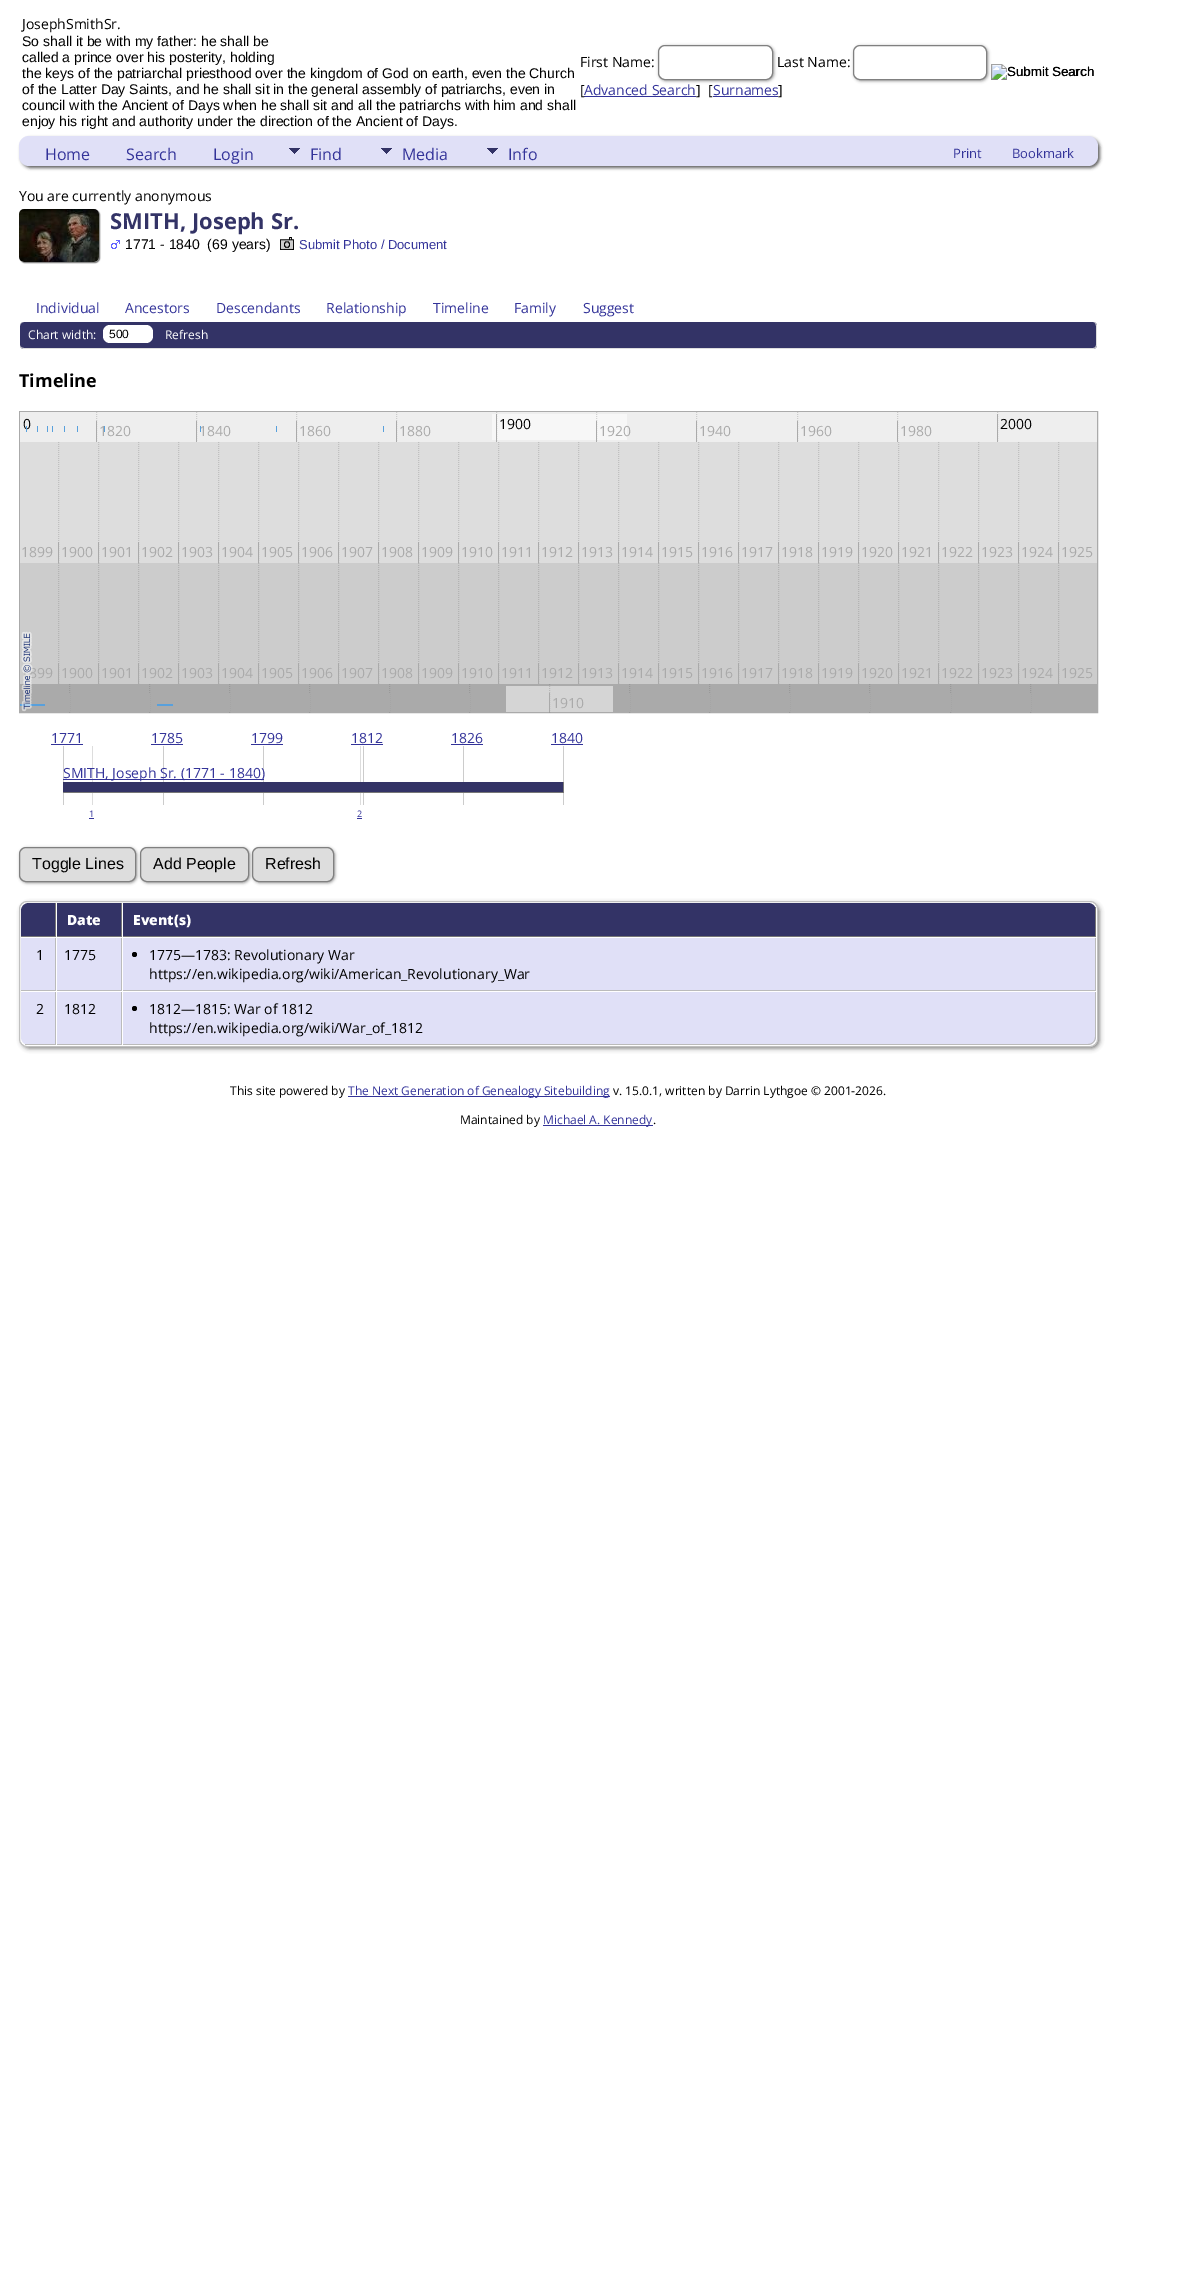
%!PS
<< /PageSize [1185 2288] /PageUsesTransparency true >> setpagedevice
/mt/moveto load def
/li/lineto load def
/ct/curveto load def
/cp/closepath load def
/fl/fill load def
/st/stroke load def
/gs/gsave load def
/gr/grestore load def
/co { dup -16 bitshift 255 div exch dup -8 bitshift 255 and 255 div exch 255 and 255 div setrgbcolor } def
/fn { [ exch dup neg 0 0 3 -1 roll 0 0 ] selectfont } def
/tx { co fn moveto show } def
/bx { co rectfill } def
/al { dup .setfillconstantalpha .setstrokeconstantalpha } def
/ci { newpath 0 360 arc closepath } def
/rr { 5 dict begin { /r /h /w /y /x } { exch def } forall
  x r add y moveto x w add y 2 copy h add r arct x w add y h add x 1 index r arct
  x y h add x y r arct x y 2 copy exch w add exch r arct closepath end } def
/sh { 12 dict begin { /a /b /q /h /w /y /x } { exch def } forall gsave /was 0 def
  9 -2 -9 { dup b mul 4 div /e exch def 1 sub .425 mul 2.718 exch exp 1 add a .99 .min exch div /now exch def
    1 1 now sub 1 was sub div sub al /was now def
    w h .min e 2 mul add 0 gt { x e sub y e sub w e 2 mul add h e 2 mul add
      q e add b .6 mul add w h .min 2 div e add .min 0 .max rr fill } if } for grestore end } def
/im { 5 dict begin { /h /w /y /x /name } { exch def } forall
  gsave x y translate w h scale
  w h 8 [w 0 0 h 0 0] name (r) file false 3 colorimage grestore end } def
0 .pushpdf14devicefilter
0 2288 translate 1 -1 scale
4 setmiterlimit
0 0 1185 2288 16#FFFFFF bx
16#999999 co
659 46 115 35 7 1.5 1 sh
16#FFFFFF co
658.5 45.5 114 34 6.5 rr gs fl gr
16#808080 co
st
16#999999 co
854 46 134 35 7 1.5 1 sh
16#FFFFFF co
853.5 45.5 133 34 6.5 rr gs fl gr
16#808080 co
st
(media/1.raw) 991 64 103 16 im
584 96 112 1 16#333399 bx
713 96 65 1 16#333399 bx
16#666666 co
21 138 1079 30 10 1.5 1 sh
16#E0E0F7 co
19 136 1079 30 10 rr fl
(media/2.raw) 289 148 11 6 im
(media/2.raw) 381 148 11 6 im
(media/2.raw) 487 148 11 6 im
16#777777 co
20 210 80 53 5 .5 1 sh
(media/3.raw) 19 209 80 53 im
(media/4.raw) 111 240 9 9 im
(media/5.raw) 280 237 14 13 im
16#333366 co
20 322 1077 27 4 rr fl
16#DDDDDD co
24 322 mt 1093 322 li 1095 322 1097 324 1097 326 ct 1097 345 li 1097 347 1095 349 1093 349 ct 24 349 li 22 349 20 347 20 345 ct 20 326 li 20 324 22 322 24 322 ct cp 24 322 mt 1093 322 li 1095 322 1096 324 1096 326 ct 1096 345 li 1096 347 1095 348 1093 348 ct 24 348 li 22 348 20 347 20 345 ct 20 326 li 20 324 22 322 24 322 ct cp eofill
16#FFFFFF co
103 325 50 18 7 rr fl
16#AAAAAA co
19.5 411.5 1078 301 rectstroke
20 412 1077 30 16#EEEEEE bx
16#CCCCCC co
[1 1] 0 setdash
96.5 412 mt 96.5 442 li st
196.5 412 mt 196.5 442 li st
296.5 412 mt 296.5 442 li st
396.5 412 mt 396.5 442 li st
492 414 135 26 16#F7F7F7 bx
0.25 al
16#666666 co
496.5 412 mt 496.5 442 li st
596.5 412 mt 596.5 442 li st
1 al
16#CCCCCC co
696.5 412 mt 696.5 442 li st
797.5 412 mt 797.5 442 li st
897.5 412 mt 897.5 442 li st
997.5 412 mt 997.5 442 li st
96 421 1 21 16#AAAAAA bx
196 421 1 21 16#AAAAAA bx
296 421 1 21 16#AAAAAA bx
396 421 1 21 16#AAAAAA bx
496 414 1 28 16#AAAAAA bx
596 421 1 21 16#AAAAAA bx
696 421 1 21 16#AAAAAA bx
797 421 1 21 16#AAAAAA bx
897 421 1 21 16#AAAAAA bx
997 414 1 28 16#AAAAAA bx
37 426 1 6 16#58A0DC bx
47 426 1 6 16#58A0DC bx
52 426 1 6 16#58A0DC bx
64 426 1 6 16#58A0DC bx
77 426 1 6 16#58A0DC bx
276 426 1 6 16#58A0DC bx
383 426 1 6 16#58A0DC bx
20 442 1077 121 16#DDDDDD bx
16#BFBFBF co
58.5 442 mt 58.5 563 li st
98.5 442 mt 98.5 563 li st
138.5 442 mt 138.5 563 li st
178.5 442 mt 178.5 563 li st
218.5 442 mt 218.5 563 li st
258.5 442 mt 258.5 563 li st
298.5 442 mt 298.5 563 li st
338.5 442 mt 338.5 563 li st
378.5 442 mt 378.5 563 li st
418.5 442 mt 418.5 563 li st
458.5 442 mt 458.5 563 li st
498.5 442 mt 498.5 563 li st
538.5 442 mt 538.5 563 li st
578.5 442 mt 578.5 563 li st
618.5 442 mt 618.5 563 li st
658.5 442 mt 658.5 563 li st
698.5 442 mt 698.5 563 li st
738.5 442 mt 738.5 563 li st
778.5 442 mt 778.5 563 li st
818.5 442 mt 818.5 563 li st
858.5 442 mt 858.5 563 li st
898.5 442 mt 898.5 563 li st
938.5 442 mt 938.5 563 li st
978.5 442 mt 978.5 563 li st
1018.5 442 mt 1018.5 563 li st
1058.5 442 mt 1058.5 563 li st
58 542 1 21 16#AAAAAA bx
98 542 1 21 16#AAAAAA bx
138 542 1 21 16#AAAAAA bx
178 542 1 21 16#AAAAAA bx
218 542 1 21 16#AAAAAA bx
258 542 1 21 16#AAAAAA bx
298 542 1 21 16#AAAAAA bx
338 542 1 21 16#AAAAAA bx
378 542 1 21 16#AAAAAA bx
418 542 1 21 16#AAAAAA bx
458 542 1 21 16#AAAAAA bx
498 542 1 21 16#AAAAAA bx
538 542 1 21 16#AAAAAA bx
578 542 1 21 16#AAAAAA bx
618 542 1 21 16#AAAAAA bx
658 542 1 21 16#AAAAAA bx
698 542 1 21 16#AAAAAA bx
738 542 1 21 16#AAAAAA bx
778 542 1 21 16#AAAAAA bx
818 542 1 21 16#AAAAAA bx
858 542 1 21 16#AAAAAA bx
898 542 1 21 16#AAAAAA bx
938 542 1 21 16#AAAAAA bx
978 542 1 21 16#AAAAAA bx
1018 542 1 21 16#AAAAAA bx
1058 542 1 21 16#AAAAAA bx
20 563 1077 121 16#CCCCCC bx
16#B3B3B3 co
58.5 563 mt 58.5 684 li st
98.5 563 mt 98.5 684 li st
138.5 563 mt 138.5 684 li st
178.5 563 mt 178.5 684 li st
218.5 563 mt 218.5 684 li st
258.5 563 mt 258.5 684 li st
298.5 563 mt 298.5 684 li st
338.5 563 mt 338.5 684 li st
378.5 563 mt 378.5 684 li st
418.5 563 mt 418.5 684 li st
458.5 563 mt 458.5 684 li st
498.5 563 mt 498.5 684 li st
538.5 563 mt 538.5 684 li st
578.5 563 mt 578.5 684 li st
618.5 563 mt 618.5 684 li st
658.5 563 mt 658.5 684 li st
698.5 563 mt 698.5 684 li st
738.5 563 mt 738.5 684 li st
778.5 563 mt 778.5 684 li st
818.5 563 mt 818.5 684 li st
858.5 563 mt 858.5 684 li st
898.5 563 mt 898.5 684 li st
938.5 563 mt 938.5 684 li st
978.5 563 mt 978.5 684 li st
1018.5 563 mt 1018.5 684 li st
1058.5 563 mt 1058.5 684 li st
58 663 1 21 16#AAAAAA bx
98 663 1 21 16#AAAAAA bx
138 663 1 21 16#AAAAAA bx
178 663 1 21 16#AAAAAA bx
218 663 1 21 16#AAAAAA bx
258 663 1 21 16#AAAAAA bx
298 663 1 21 16#AAAAAA bx
338 663 1 21 16#AAAAAA bx
378 663 1 21 16#AAAAAA bx
418 663 1 21 16#AAAAAA bx
458 663 1 21 16#AAAAAA bx
498 663 1 21 16#AAAAAA bx
538 663 1 21 16#AAAAAA bx
578 663 1 21 16#AAAAAA bx
618 663 1 21 16#AAAAAA bx
658 663 1 21 16#AAAAAA bx
698 663 1 21 16#AAAAAA bx
738 663 1 21 16#AAAAAA bx
778 663 1 21 16#AAAAAA bx
818 663 1 21 16#AAAAAA bx
858 663 1 21 16#AAAAAA bx
898 663 1 21 16#AAAAAA bx
938 663 1 21 16#AAAAAA bx
978 663 1 21 16#AAAAAA bx
1018 663 1 21 16#AAAAAA bx
1058 663 1 21 16#AAAAAA bx
20 684 1077 28 16#AAAAAA bx
506 686 107 26 16#D5D5D5 bx
16#999999 co
69.5 684 mt 69.5 714 li st
149.5 684 mt 149.5 714 li st
229.5 684 mt 229.5 714 li st
309.5 684 mt 309.5 714 li st
389.5 684 mt 389.5 714 li st
469.5 684 mt 469.5 714 li st
0.25 al
16#666666 co
549.5 684 mt 549.5 714 li st
1 al
16#999999 co
629.5 684 mt 629.5 714 li st
709.5 684 mt 709.5 714 li st
789.5 684 mt 789.5 714 li st
869.5 684 mt 869.5 714 li st
950.5 684 mt 950.5 714 li st
1030.5 684 mt 1030.5 714 li st
20 704 25 2 16#58A0DC bx
157 704 16 2 16#58A0DC bx
69 693 1 19 16#AAAAAA bx
149 693 1 19 16#AAAAAA bx
229 693 1 19 16#AAAAAA bx
309 693 1 19 16#AAAAAA bx
389 693 1 19 16#AAAAAA bx
469 693 1 19 16#AAAAAA bx
549 693 1 19 16#AAAAAA bx
629 693 1 19 16#AAAAAA bx
709 693 1 19 16#AAAAAA bx
789 693 1 19 16#AAAAAA bx
869 693 1 19 16#AAAAAA bx
950 693 1 19 16#AAAAAA bx
1030 693 1 19 16#AAAAAA bx
51 744 32 1 16#333399 bx
151 744 32 1 16#333399 bx
251 744 32 1 16#333399 bx
351 744 32 1 16#333399 bx
451 744 32 1 16#333399 bx
551 744 32 1 16#333399 bx
63 746 1 59 16#CCCCCC bx
92 746 1 59 16#DDDDDD bx
163 746 1 59 16#CCCCCC bx
263 746 1 59 16#CCCCCC bx
360 746 1 59 16#DDDDDD bx
363 746 1 59 16#CCCCCC bx
463 746 1 59 16#CCCCCC bx
563 746 1 59 16#CCCCCC bx
63 779 201 1 16#333399 bx
63 782 500 10 16#333366 bx
563 782 1 11 16#777777 bx
63 792 501 1 16#777777 bx
89 818 5 1 16#333399 bx
357 818 5 1 16#333399 bx
16#999999 co
20 848 117 35 7 1.5 1 sh
16#DDDDDD co
19.5 847.5 116 34 6.5 rr gs fl gr
16#808080 co
[] 0 setdash
st
16#999999 co
141 848 109 35 7 1.5 1 sh
16#DDDDDD co
140.5 847.5 108 34 6.5 rr gs fl gr
16#808080 co
st
16#999999 co
253 848 82 35 7 1.5 1 sh
16#DDDDDD co
252.5 847.5 81 34 6.5 rr gs fl gr
16#808080 co
st
16#666666 co
22 904 1077 144 7 2.5 1 sh
16#FFFFFF co
19.5 901.5 1078 145 7.5 rr gs fl gr
16#C0C0C0 co
st
16#333366 co
29 903 mt 56 903 li 56 937 li 21 937 li 21 911 li 21 906.5 24.5 903 29 903 ct cp fl
55 903 1 34 16#777777 bx
21 936 35 1 16#777777 bx
57 903 64 33 16#333366 bx
121 903 1 34 16#777777 bx
57 936 65 1 16#777777 bx
16#333366 co
123 903 mt 1088 903 li 1092.5 903 1096 906.5 1096 911 ct 1096 937 li 123 937 li cp fl
1095 907 1 30 16#777777 bx
123 936 973 1 16#777777 bx
21 938 34 52 16#E0E0F7 bx
55 938 1 53 16#BBBBBB bx
21 990 35 1 16#BBBBBB bx
57 938 64 52 16#E0E0F7 bx
121 938 1 53 16#BBBBBB bx
57 990 65 1 16#BBBBBB bx
123 938 972 52 16#E0E0F7 bx
1095 938 1 53 16#BBBBBB bx
123 990 973 1 16#BBBBBB bx
16#000000 co
134.5 954.5 2.5 ci fl
16#E0E0F7 co
21 992 mt 56 992 li 56 1045 li 29 1045 li 24.5 1045 21 1041.5 21 1037 ct cp fl
55 992 1 53 16#BBBBBB bx
25 1044 31 1 16#BBBBBB bx
57 992 64 52 16#E0E0F7 bx
121 992 1 53 16#BBBBBB bx
57 1044 65 1 16#BBBBBB bx
16#E0E0F7 co
123 992 mt 1096 992 li 1096 1037 li 1096 1041.5 1092.5 1045 1088 1045 ct 123 1045 li cp fl
16#BBBBBB co
123 992 mt 1096 992 li 1096 1037 li 1096 1041 1092 1045 1088 1045 ct 123 1045 li cp 123 992 mt 1095 992 li 1095 1037 li 1095 1041 1092 1044 1088 1044 ct 123 1044 li cp eofill
16#000000 co
134.5 1008.5 2.5 ci fl
348 1096 262 1 16#333399 bx
543 1125 110 1 16#333399 bx
(JosephSmithSr.) 22 29 /OpenSans-Regular 14 16#000000 tx
(So shall it be with my father: he shall be) 22 46 /LiberationSans-Regular 14 16#000000 tx
(called a prince over his posterity, holding) 22 62 /LiberationSans-Regular 14 16#000000 tx
(the keys of the patriarchal priesthood over the kingdom of God on earth, even the Church) 22 78 /LiberationSans-Regular 14 16#000000 tx
(of the Latter Day Saints, and he shall sit in the general assembly of patriarchs, even in) 22 94 /LiberationSans-Regular 14 16#000000 tx
(council with the Ancient of Days when he shall sit and all the patriarchs with him and shall) 22 110 /LiberationSans-Regular 14 16#000000 tx
(enjoy his right and authority under the direction of the Ancient of Days.) 22 126 /LiberationSans-Regular 14 16#000000 tx
(First Name:) 580 67 /OpenSans-Regular 14 16#000000 tx
(Last Name:) 777 67 /OpenSans-Regular 14 16#000000 tx
(Submit Search) 1007 76 /LiberationSans-Regular 13.25 16#000000 tx
([) 580 95 /OpenSans-Regular 14 16#000000 tx
(Advanced Search) 584 95 /OpenSans-Regular 14 16#333399 tx
(]  [) 696 95 /OpenSans-Regular 14 16#000000 tx
(Surnames) 713 95 /OpenSans-Regular 14 16#333399 tx
(]) 778 95 /OpenSans-Regular 14 16#000000 tx
(Home) 45 160 /OpenSans-Regular 16 16#333399 tx
(Search) 126 160 /OpenSans-Regular 16 16#333399 tx
(Login) 213 160 /OpenSans-Regular 16 16#333399 tx
(Find) 310 160 /OpenSans-Regular 16 16#333399 tx
(Media) 402 160 /OpenSans-Regular 16 16#333399 tx
(Info) 508 160 /OpenSans-Regular 16 16#333399 tx
(Print) 953 158 /OpenSans-Regular 13 16#333399 tx
(Bookmark) 1012 158 /OpenSans-Regular 13 16#333399 tx
(You are currently anonymous) 19 201 /OpenSans-Regular 14 16#000000 tx
(SMITH, Joseph Sr.) 110 229 /OpenSans-Bold 22 16#333366 tx
(1771 - 1840  \(69 years\)) 125 249 /LiberationSans-Regular 14 16#000000 tx
(Submit Photo / Document) 299 249 /LiberationSans-Regular 13 16#333399 tx
(Individual) 36 313 /OpenSans-Regular 14 16#333399 tx
(Ancestors) 125 313 /OpenSans-Regular 14 16#333399 tx
(Descendants) 216 313 /OpenSans-Regular 14 16#333399 tx
(Relationship) 326 313 /OpenSans-Regular 14 16#333399 tx
(Timeline) 433 313 /OpenSans-Regular 14 16#333399 tx
(Family) 514 313 /OpenSans-Regular 14 16#333399 tx
(Suggest) 583 313 /OpenSans-Regular 14 16#333399 tx
(Chart width:) 28 339 /OpenSans-Regular 12 16#FFFFFF tx
(500) 109 338 /LiberationSans-Regular 12 16#000000 tx
(Refresh) 165 339 /OpenSans-Regular 12 16#FFFFFF tx
(Timeline) 19 387 /OpenSans-Bold 18 16#000000 tx
(0) 23 429 /OpenSans-Regular 14 16#000000 tx
(1820) 99 436 /OpenSans-Regular 14 16#AAAAAA tx
(1840) 199 436 /OpenSans-Regular 14 16#AAAAAA tx
(1860) 299 436 /OpenSans-Regular 14 16#AAAAAA tx
(1880) 399 436 /OpenSans-Regular 14 16#AAAAAA tx
(1900) 499 429 /OpenSans-Regular 14 16#000000 tx
(1920) 599 436 /OpenSans-Regular 14 16#AAAAAA tx
(1940) 699 436 /OpenSans-Regular 14 16#AAAAAA tx
(1960) 800 436 /OpenSans-Regular 14 16#AAAAAA tx
(1980) 900 436 /OpenSans-Regular 14 16#AAAAAA tx
(2000) 1000 429 /OpenSans-Regular 14 16#000000 tx
26 426 1 6 16#58A0DC bx
104 426 1 6 16#58A0DC bx
200 426 1 6 16#58A0DC bx
(1899) 21 557 /OpenSans-Regular 14 16#AAAAAA tx
(1900) 61 557 /OpenSans-Regular 14 16#AAAAAA tx
(1901) 101 557 /OpenSans-Regular 14 16#AAAAAA tx
(1902) 141 557 /OpenSans-Regular 14 16#AAAAAA tx
(1903) 181 557 /OpenSans-Regular 14 16#AAAAAA tx
(1904) 221 557 /OpenSans-Regular 14 16#AAAAAA tx
(1905) 261 557 /OpenSans-Regular 14 16#AAAAAA tx
(1906) 301 557 /OpenSans-Regular 14 16#AAAAAA tx
(1907) 341 557 /OpenSans-Regular 14 16#AAAAAA tx
(1908) 381 557 /OpenSans-Regular 14 16#AAAAAA tx
(1909) 421 557 /OpenSans-Regular 14 16#AAAAAA tx
(1910) 461 557 /OpenSans-Regular 14 16#AAAAAA tx
(1911) 501 557 /OpenSans-Regular 14 16#AAAAAA tx
(1912) 541 557 /OpenSans-Regular 14 16#AAAAAA tx
(1913) 581 557 /OpenSans-Regular 14 16#AAAAAA tx
(1914) 621 557 /OpenSans-Regular 14 16#AAAAAA tx
(1915) 661 557 /OpenSans-Regular 14 16#AAAAAA tx
(1916) 701 557 /OpenSans-Regular 14 16#AAAAAA tx
(1917) 741 557 /OpenSans-Regular 14 16#AAAAAA tx
(1918) 781 557 /OpenSans-Regular 14 16#AAAAAA tx
(1919) 821 557 /OpenSans-Regular 14 16#AAAAAA tx
(1920) 861 557 /OpenSans-Regular 14 16#AAAAAA tx
(1921) 901 557 /OpenSans-Regular 14 16#AAAAAA tx
(1922) 941 557 /OpenSans-Regular 14 16#AAAAAA tx
(1923) 981 557 /OpenSans-Regular 14 16#AAAAAA tx
(1924) 1021 557 /OpenSans-Regular 14 16#AAAAAA tx
(1925) 1061 557 /OpenSans-Regular 14 16#AAAAAA tx
(1899) 21 678 /OpenSans-Regular 14 16#AAAAAA tx
(media/6.raw) 21 631 12 81 im
(1900) 61 678 /OpenSans-Regular 14 16#AAAAAA tx
(1901) 101 678 /OpenSans-Regular 14 16#AAAAAA tx
(1902) 141 678 /OpenSans-Regular 14 16#AAAAAA tx
(1903) 181 678 /OpenSans-Regular 14 16#AAAAAA tx
(1904) 221 678 /OpenSans-Regular 14 16#AAAAAA tx
(1905) 261 678 /OpenSans-Regular 14 16#AAAAAA tx
(1906) 301 678 /OpenSans-Regular 14 16#AAAAAA tx
(1907) 341 678 /OpenSans-Regular 14 16#AAAAAA tx
(1908) 381 678 /OpenSans-Regular 14 16#AAAAAA tx
(1909) 421 678 /OpenSans-Regular 14 16#AAAAAA tx
(1910) 461 678 /OpenSans-Regular 14 16#AAAAAA tx
(1911) 501 678 /OpenSans-Regular 14 16#AAAAAA tx
(1912) 541 678 /OpenSans-Regular 14 16#AAAAAA tx
(1913) 581 678 /OpenSans-Regular 14 16#AAAAAA tx
(1914) 621 678 /OpenSans-Regular 14 16#AAAAAA tx
(1915) 661 678 /OpenSans-Regular 14 16#AAAAAA tx
(1916) 701 678 /OpenSans-Regular 14 16#AAAAAA tx
(1917) 741 678 /OpenSans-Regular 14 16#AAAAAA tx
(1918) 781 678 /OpenSans-Regular 14 16#AAAAAA tx
(1919) 821 678 /OpenSans-Regular 14 16#AAAAAA tx
(1920) 861 678 /OpenSans-Regular 14 16#AAAAAA tx
(1921) 901 678 /OpenSans-Regular 14 16#AAAAAA tx
(1922) 941 678 /OpenSans-Regular 14 16#AAAAAA tx
(1923) 981 678 /OpenSans-Regular 14 16#AAAAAA tx
(1924) 1021 678 /OpenSans-Regular 14 16#AAAAAA tx
(1925) 1061 678 /OpenSans-Regular 14 16#AAAAAA tx
(1910) 552 708 /OpenSans-Regular 14 16#AAAAAA tx
(1771) 51 743 /OpenSans-Regular 14 16#333399 tx
(1785) 151 743 /OpenSans-Regular 14 16#333399 tx
(1799) 251 743 /OpenSans-Regular 14 16#333399 tx
(1812) 351 743 /OpenSans-Regular 14 16#333399 tx
(1826) 451 743 /OpenSans-Regular 14 16#333399 tx
(1840) 551 743 /OpenSans-Regular 14 16#333399 tx
(SMITH, Joseph Sr. \(1771 - 1840\)) 63 778 /OpenSans-Regular 14 16#333399 tx
(1) 89 817 /OpenSans-Regular 9 16#333399 tx
(2) 357 817 /OpenSans-Regular 9 16#333399 tx
(Toggle Lines) 32 869 /LiberationSans-Regular 16 16#000000 tx
(Add People) 153 869 /LiberationSans-Regular 16 16#000000 tx
(Refresh) 265 869 /LiberationSans-Regular 16 16#000000 tx
(Date) 67 925 /OpenSans-ExtraBold 14 16#FFFFFF tx
(Event\(s\)) 133 925 /OpenSans-ExtraBold 14 16#FFFFFF tx
(1) 36 960 /OpenSans-Regular 14 16#000000 tx
(1775) 64 960 /OpenSans-Regular 14 16#000000 tx
(1775—1783: Revolutionary War) 149 960 /OpenSans-Regular 14 16#000000 tx
(https://en.wikipedia.org/wiki/American_Revolutionary_War) 149 979 /OpenSans-Regular 14 16#000000 tx
(2) 36 1014 /OpenSans-Regular 14 16#000000 tx
(1812) 64 1014 /OpenSans-Regular 14 16#000000 tx
(1812—1815: War of 1812) 149 1014 /OpenSans-Regular 14 16#000000 tx
(https://en.wikipedia.org/wiki/War_of_1812) 149 1033 /OpenSans-Regular 14 16#000000 tx
(This site powered by) 230 1095 /OpenSans-Regular 12 16#000000 tx
(The Next Generation of Genealogy Sitebuilding) 348 1095 /OpenSans-Regular 12 16#333399 tx
(v. 15.0.1, written by Darrin Lythgoe © 2001-2026.) 613 1095 /OpenSans-Regular 12 16#000000 tx
(Maintained by) 460 1124 /OpenSans-Regular 12 16#000000 tx
(Michael A. Kennedy) 543 1124 /OpenSans-Regular 12 16#333399 tx
(.) 653 1124 /OpenSans-Regular 12 16#000000 tx
.poppdf14devicefilter showpage
